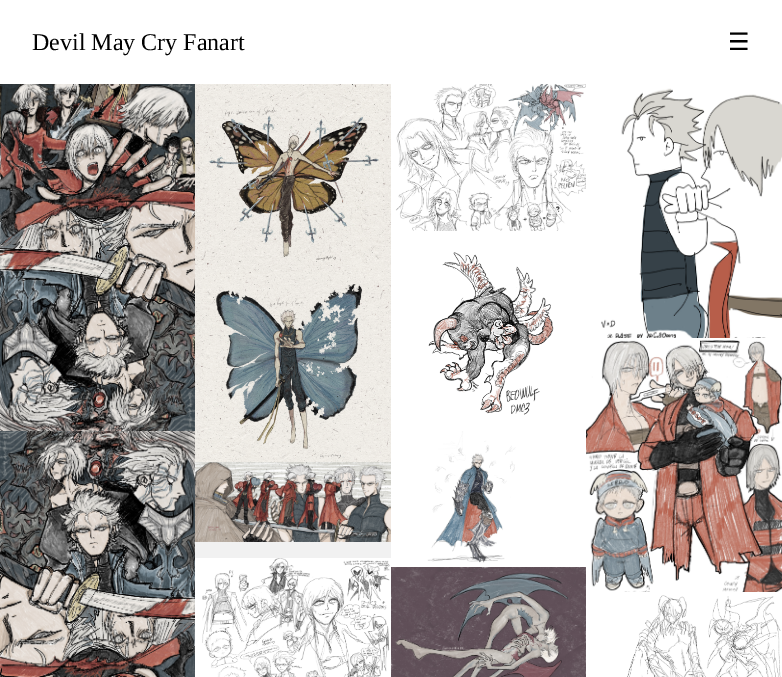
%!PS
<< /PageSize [782 677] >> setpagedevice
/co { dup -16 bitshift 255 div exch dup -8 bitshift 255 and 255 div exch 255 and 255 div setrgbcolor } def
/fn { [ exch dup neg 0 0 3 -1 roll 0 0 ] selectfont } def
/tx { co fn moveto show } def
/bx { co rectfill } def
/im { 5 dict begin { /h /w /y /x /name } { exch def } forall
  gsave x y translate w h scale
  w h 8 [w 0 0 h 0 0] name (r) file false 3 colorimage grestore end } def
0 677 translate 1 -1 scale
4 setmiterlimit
0 0 782 677 16#F1F1F1 bx
0 0 782 84 16#FFFFFF bx
(media/1.raw) 0 84 195 347 im
(media/2.raw) 0 431 195 246 im
(media/3.raw) 195 84 196 188 im
(media/4.raw) 195 272 196 190 im
(media/5.raw) 195 462 196 80 im
(media/6.raw) 195 558 196 119 im
(media/7.raw) 391 84 195 147 im
(media/8.raw) 391 231 195 200 im
(media/9.raw) 391 431 195 136 im
(media/10.raw) 391 567 195 110 im
(media/11.raw) 586 84 196 254 im
(media/12.raw) 586 338 196 254 im
(media/13.raw) 586 592 196 85 im
(Devil May Cry Fanart) 32 50 /LiberationSerif-Regular 24 16#000000 tx
(☰) 728 50 /DejaVuSans-Regular 24 16#000000 tx
showpage
